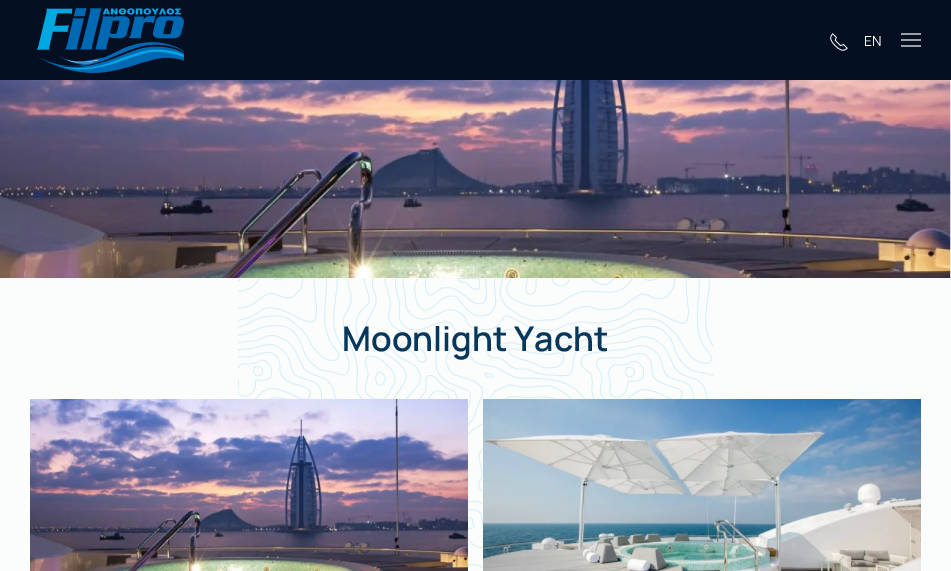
%!PS
<< /PageSize [951 571] >> setpagedevice
/co { dup -16 bitshift 255 div exch dup -8 bitshift 255 and 255 div exch 255 and 255 div setrgbcolor } def
/fn { [ exch dup neg 0 0 3 -1 roll 0 0 ] selectfont } def
/tx { co fn moveto show } def
/bx { co rectfill } def
/im { 5 dict begin { /h /w /y /x /name } { exch def } forall
  gsave x y translate w h scale
  w h 8 [w 0 0 h 0 0] name (r) file false 3 colorimage grestore end } def
0 571 translate 1 -1 scale
4 setmiterlimit
0 0 951 571 16#FBFCFC bx
0 0 951 80 16#040F21 bx
(media/1.raw) 35 8 149 65 im
(media/2.raw) 830 33 18 18 im
901 33 20 2 16#9B9FA6 bx
901 39 20 2 16#9B9FA6 bx
901 45 20 2 16#9B9FA6 bx
950 80 1 198 16#FFFFFF bx
(media/3.raw) 0 80 951 198 im
(media/4.raw) 238 278 475 290 im
(media/5.raw) 30 399 438 172 im
(media/6.raw) 483 399 438 172 im
(EN) 864 46 /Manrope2-ExtraLight 14 16#FFFFFF tx
(Moonlight Yacht) 342 351 /Manrope-ExtraLight 34 16#07385C tx
showpage
